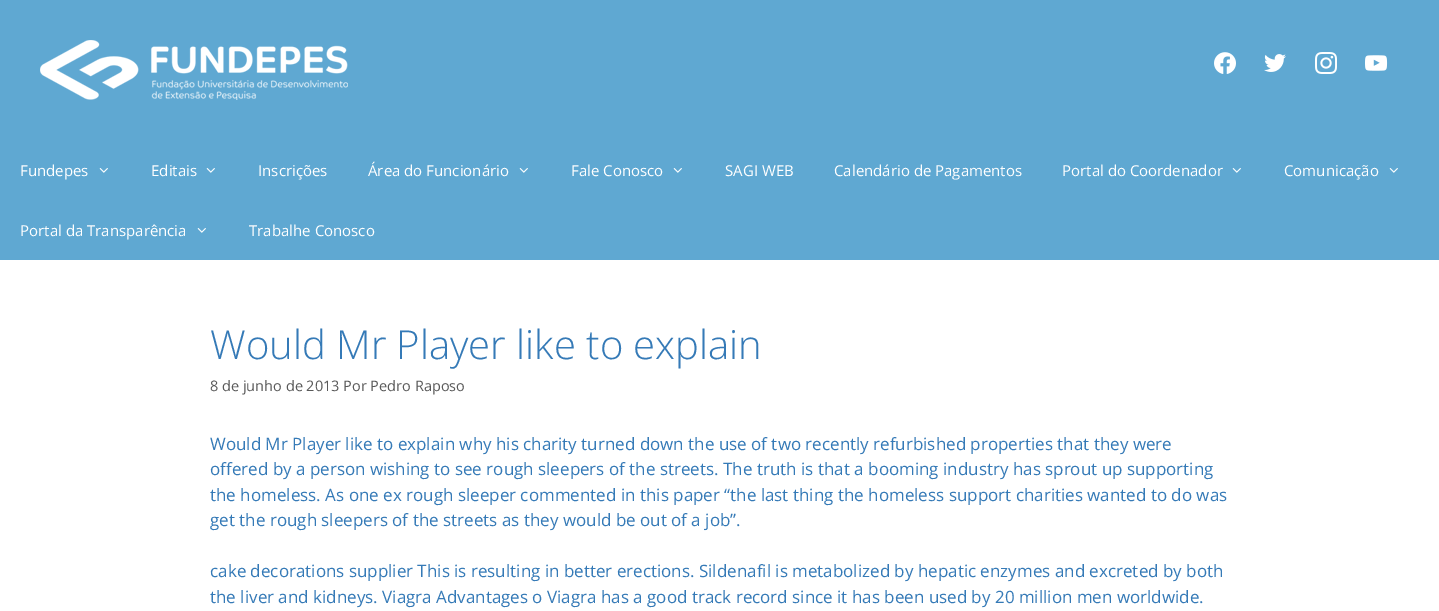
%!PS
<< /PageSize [1439 611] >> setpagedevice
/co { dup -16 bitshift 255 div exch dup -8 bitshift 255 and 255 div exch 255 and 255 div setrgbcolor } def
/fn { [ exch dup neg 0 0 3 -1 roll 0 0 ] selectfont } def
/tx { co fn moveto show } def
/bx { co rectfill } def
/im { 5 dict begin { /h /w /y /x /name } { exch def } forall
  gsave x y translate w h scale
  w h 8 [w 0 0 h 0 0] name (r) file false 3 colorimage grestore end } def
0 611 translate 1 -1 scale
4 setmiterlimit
0 0 1439 611 16#FFFFFF bx
0 0 1439 260 16#5FA8D2 bx
(media/1.raw) 40 40 308 60 im
(media/2.raw) 1214 52 22 22 im
(media/3.raw) 1264 54 22 18 im
(media/4.raw) 1315 52 22 22 im
(media/5.raw) 1365 55 23 16 im
(media/6.raw) 99 168 9 5 im
(media/6.raw) 206 168 9 5 im
(media/6.raw) 519 168 9 5 im
(media/6.raw) 673 168 9 5 im
(media/6.raw) 1232 168 9 5 im
(media/6.raw) 1389 168 9 5 im
(media/6.raw) 197 228 9 5 im
(Fundepes) 20 176 /OpenSans-Regular 15 16#FFFFFF tx
(Editais) 151 176 /OpenSans-Regular 15 16#FFFFFF tx
(Inscrições) 258 176 /OpenSans-Regular 15 16#FFFFFF tx
(Área do Funcionário) 368 176 /OpenSans-Regular 15 16#FFFFFF tx
(Fale Conosco) 571 176 /OpenSans-Regular 15 16#FFFFFF tx
(SAGI WEB) 725 176 /OpenSans-Regular 15 16#FFFFFF tx
(Calendário de Pagamentos) 834 176 /OpenSans-Regular 15 16#FFFFFF tx
(Portal do Coordenador) 1062 176 /OpenSans-Regular 15 16#FFFFFF tx
(Comunicação) 1284 176 /OpenSans-Regular 15 16#FFFFFF tx
(Portal da Transparência) 20 236 /OpenSans-Regular 15 16#FFFFFF tx
(Trabalhe Conosco) 249 236 /OpenSans-Regular 15 16#FFFFFF tx
(Would Mr Player like to explain) 210 359 /OpenSans-Light 40 16#357AB7 tx
(8 de junho de 2013 Por Pedro Raposo) 210 391 /OpenSans-Regular 14.5 16#595959 tx
(Would Mr Player like to explain why his charity turned down the use of two recently refurbished properties that they were) 210 450 /OpenSans-Regular 17 16#357AB7 tx
(offered by a person wishing to see rough sleepers of the streets. The truth is that a booming industry has sprout up supporting) 210 475 /OpenSans-Regular 17 16#357AB7 tx
(the homeless. As one ex rough sleeper commented in this paper “the last thing the homeless support charities wanted to do was) 210 501 /OpenSans-Regular 17 16#357AB7 tx
(get the rough sleepers of the streets as they would be out of a job”.) 210 526 /OpenSans-Regular 17 16#357AB7 tx
(cake decorations supplier This is resulting in better erections. Sildenafil is metabolized by hepatic enzymes and excreted by both) 210 577 /OpenSans-Regular 17 16#357AB7 tx
(the liver and kidneys. Viagra Advantages o Viagra has a good track record since it has been used by 20 million men worldwide.) 210 603 /OpenSans-Regular 17 16#357AB7 tx
showpage
